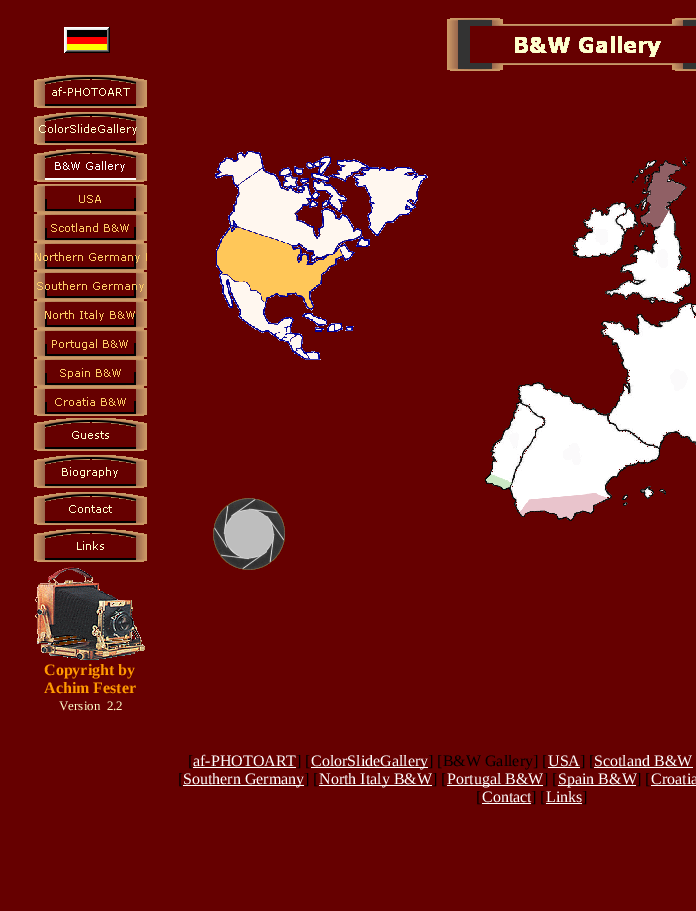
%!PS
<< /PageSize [696 911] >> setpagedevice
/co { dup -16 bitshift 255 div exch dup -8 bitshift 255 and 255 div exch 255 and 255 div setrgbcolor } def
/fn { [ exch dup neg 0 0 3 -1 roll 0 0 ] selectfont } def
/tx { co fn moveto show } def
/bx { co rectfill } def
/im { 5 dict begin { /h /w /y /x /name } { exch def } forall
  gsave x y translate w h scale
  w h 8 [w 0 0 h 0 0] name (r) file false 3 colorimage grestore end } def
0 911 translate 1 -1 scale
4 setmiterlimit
0 0 696 911 16#660000 bx
(media/1.raw) 64 27 46 26 im
(media/2.raw) 34 75 113 33 im
(media/3.raw) 34 112 113 33 im
(media/4.raw) 34 149 113 33 im
(media/5.raw) 34 184 113 29 im
(media/6.raw) 34 213 113 29 im
(media/7.raw) 34 242 113 29 im
(media/8.raw) 34 271 113 29 im
(media/9.raw) 34 300 113 29 im
(media/10.raw) 34 329 113 29 im
(media/11.raw) 34 358 113 29 im
(media/12.raw) 34 387 113 29 im
(media/13.raw) 34 418 113 33 im
(media/14.raw) 34 455 113 33 im
(media/15.raw) 34 492 113 33 im
(media/16.raw) 34 529 113 33 im
(media/17.raw) 35 567 110 93 im
(media/18.raw) 215 151 213 209 im
(media/19.raw) 213 498 72 72 im
(media/20.raw) 447 18 249 53 im
(media/21.raw) 485 157 211 364 im
193 767 103 1 16#FFFFFF bx
311 767 117 1 16#FFFFFF bx
548 767 32 1 16#FFFFFF bx
594 767 99 1 16#FFFFFF bx
183 785 121 1 16#FFFFFF bx
319 785 113 1 16#FFFFFF bx
447 785 96 1 16#FFFFFF bx
558 785 78 1 16#FFFFFF bx
651 785 45 1 16#FFFFFF bx
482 803 49 1 16#FFFFFF bx
546 803 36 1 16#FFFFFF bx
(Copyright by) 44 675 /LiberationSerif-Bold 16 16#FF9900 tx
(Achim Fester) 44 693 /LiberationSerif-Bold 16 16#FF9900 tx
(Version  2.2) 59 710 /LiberationSerif-Regular 13 16#FFFFCC tx
([) 188 766 /LiberationSerif-Regular 16 16#000000 tx
(af-PHOTOART) 193 766 /LiberationSerif-Regular 16 16#FFFFFF tx
(] [) 296 766 /LiberationSerif-Regular 16 16#000000 tx
(ColorSlideGallery) 311 766 /LiberationSerif-Regular 16 16#FFFFFF tx
(] [B&W Gallery] [) 428 766 /LiberationSerif-Regular 16 16#000000 tx
(USA) 548 766 /LiberationSerif-Regular 16 16#FFFFFF tx
(] [) 580 766 /LiberationSerif-Regular 16 16#000000 tx
(Scotland B&W) 594 766 /LiberationSerif-Regular 16 16#FFFFFF tx
([) 178 784 /LiberationSerif-Regular 16 16#000000 tx
(Southern Germany) 183 784 /LiberationSerif-Regular 16 16#FFFFFF tx
(] [) 304 784 /LiberationSerif-Regular 16 16#000000 tx
(North Italy B&W) 319 784 /LiberationSerif-Regular 16 16#FFFFFF tx
(] [) 432 784 /LiberationSerif-Regular 16 16#000000 tx
(Portugal B&W) 447 784 /LiberationSerif-Regular 16 16#FFFFFF tx
(] [) 543 784 /LiberationSerif-Regular 16 16#000000 tx
(Spain B&W) 558 784 /LiberationSerif-Regular 16 16#FFFFFF tx
(] [) 636 784 /LiberationSerif-Regular 16 16#000000 tx
(Croatia) 651 784 /LiberationSerif-Regular 16 16#FFFFFF tx
([) 476 802 /LiberationSerif-Regular 16 16#000000 tx
(Contact) 482 802 /LiberationSerif-Regular 16 16#FFFFFF tx
(] [) 531 802 /LiberationSerif-Regular 16 16#000000 tx
(Links) 546 802 /LiberationSerif-Regular 16 16#FFFFFF tx
(]) 582 802 /LiberationSerif-Regular 16 16#000000 tx
showpage
